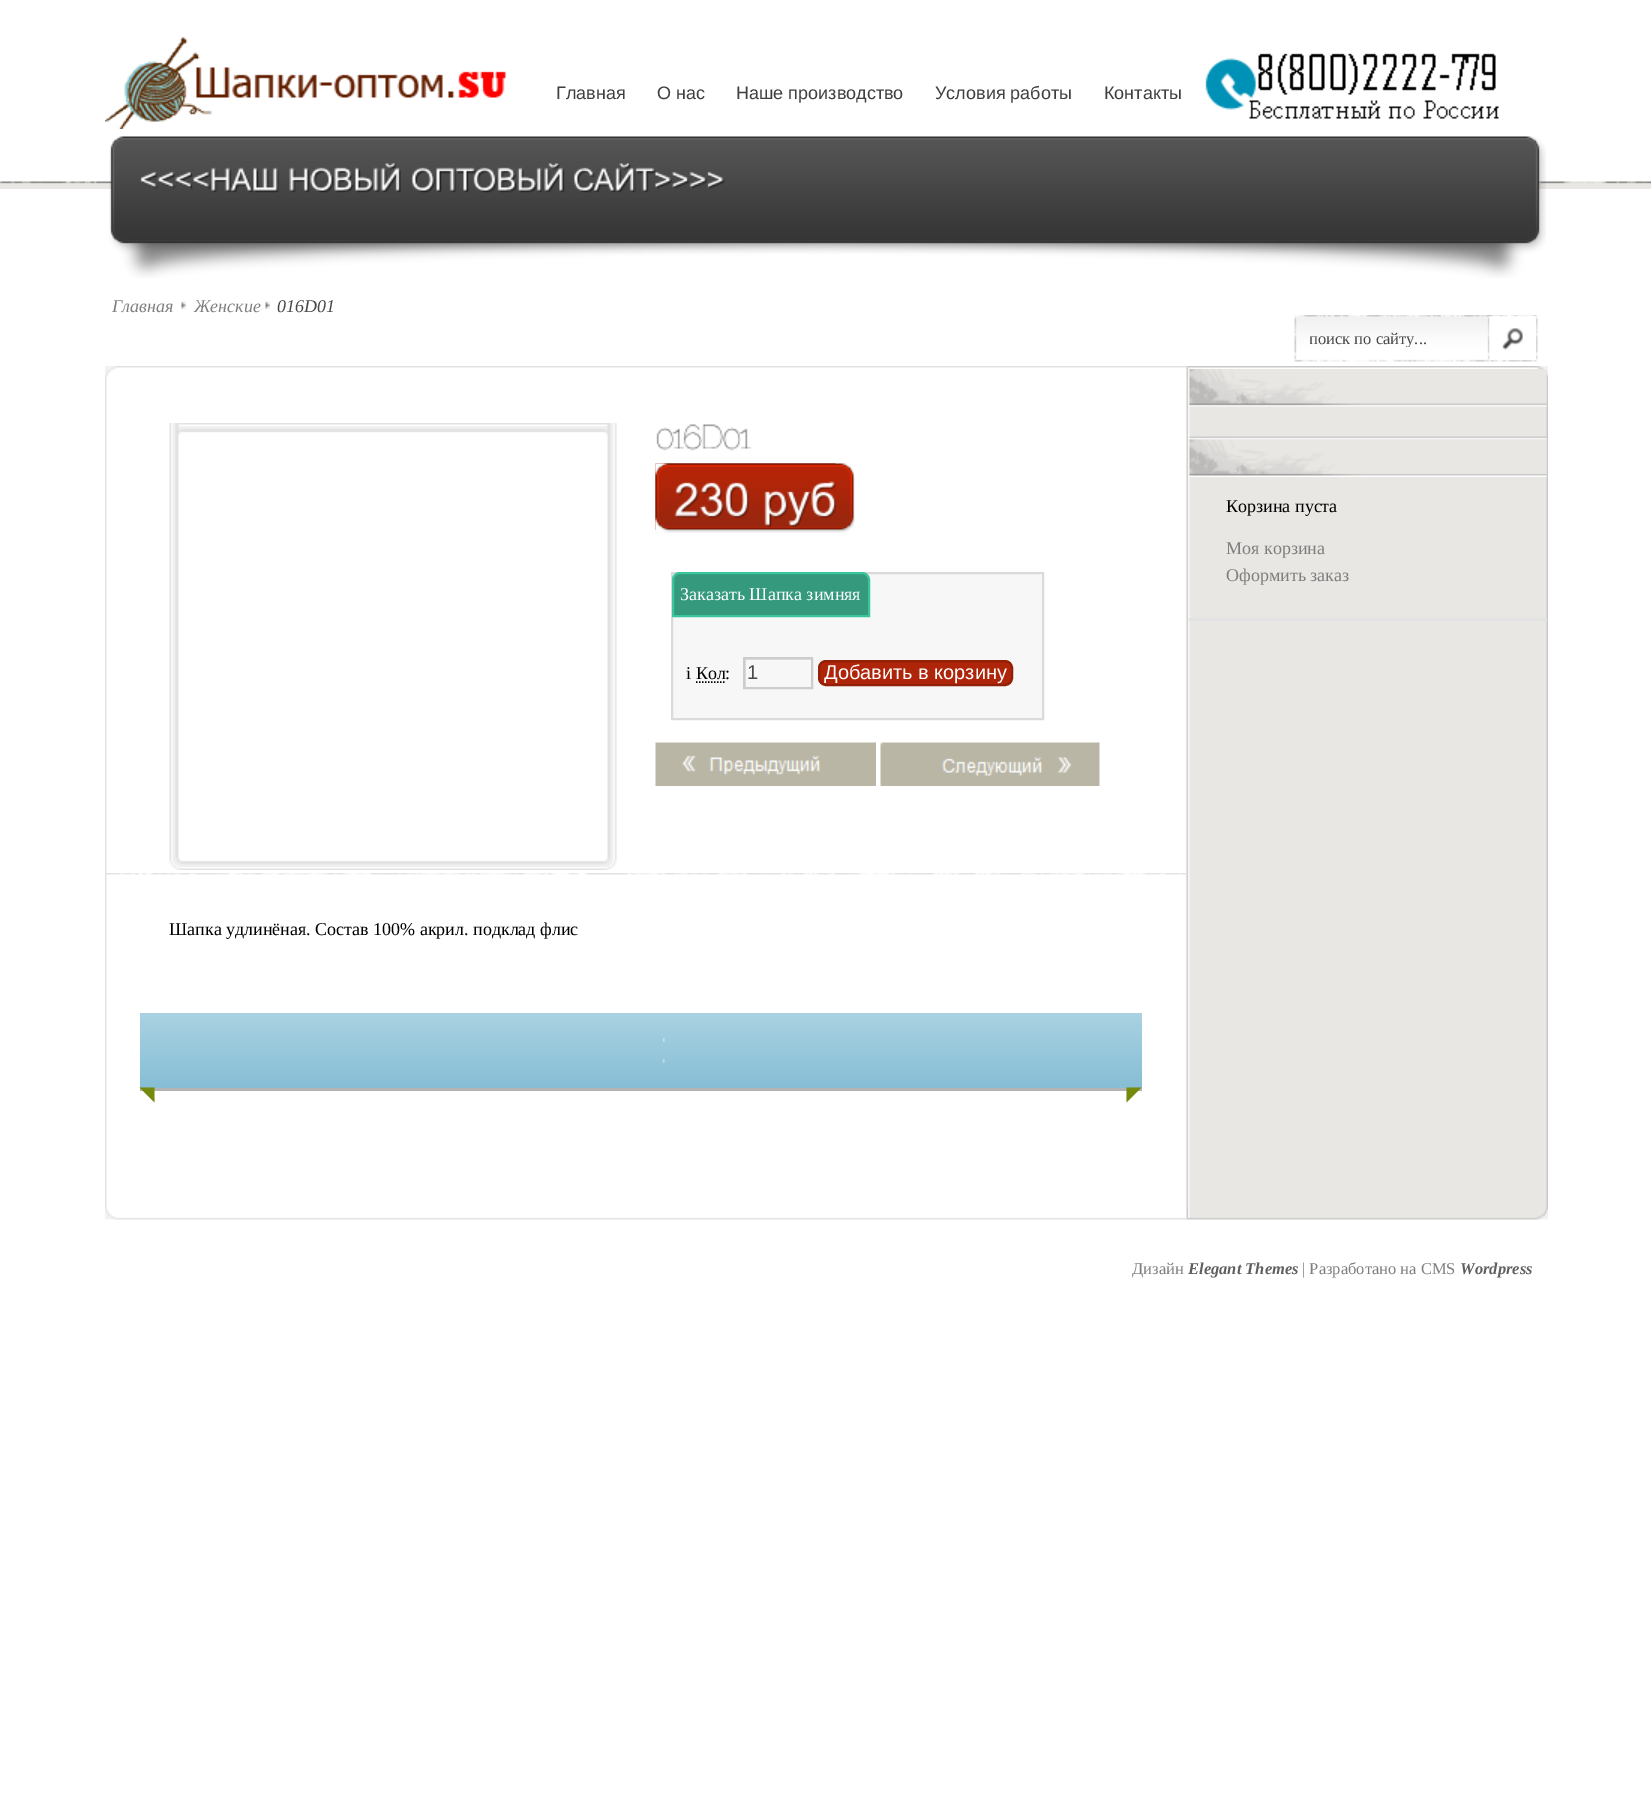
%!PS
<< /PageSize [1651 1819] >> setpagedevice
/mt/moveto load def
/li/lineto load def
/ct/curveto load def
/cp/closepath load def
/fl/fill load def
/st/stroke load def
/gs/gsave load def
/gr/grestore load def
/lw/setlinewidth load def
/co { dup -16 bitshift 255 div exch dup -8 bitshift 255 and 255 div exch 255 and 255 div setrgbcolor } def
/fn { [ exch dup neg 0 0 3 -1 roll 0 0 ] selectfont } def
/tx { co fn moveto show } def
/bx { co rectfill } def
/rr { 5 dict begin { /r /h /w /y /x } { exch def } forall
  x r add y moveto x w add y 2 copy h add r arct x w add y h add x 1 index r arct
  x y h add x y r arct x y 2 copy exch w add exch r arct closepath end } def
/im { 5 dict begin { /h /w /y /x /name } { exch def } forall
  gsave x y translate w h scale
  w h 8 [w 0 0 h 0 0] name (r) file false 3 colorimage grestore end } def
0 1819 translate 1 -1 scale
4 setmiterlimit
0 0 1651 1819 16#FFFFFF bx
(media/1.raw) 0 181 1651 8 im
(media/2.raw) 105 37 401 92 im
(media/3.raw) 1205 53 294 66 im
(media/4.raw) 109 136 1437 142 im
(media/5.raw) 140 167 139 26 im
(media/6.raw) 289 163 112 30 im
(media/7.raw) 411 163 154 30 im
(media/8.raw) 573 163 152 30 im
(media/9.raw) 181 301 5 8 im
(media/9.raw) 265 301 5 8 im
(media/10.raw) 1294 315 244 47 im
(media/11.raw) 1489 316 47 44 im
(media/12.raw) 105 366 1443 12 im
(media/13.raw) 105 378 1443 828 im
(media/14.raw) 1189 436 358 4 im
(media/15.raw) 1189 369 358 38 im
1189 618 358 3 16#E3E3E3 bx
(media/16.raw) 1189 439 358 38 im
(media/17.raw) 169 423 448 447 im
(media/18.raw) 656 424 96 27 im
(media/19.raw) 655 463 200 70 im
(media/20.raw) 655 463 181 70 im
(media/21.raw) 674 482 76 36 im
(media/22.raw) 764 481 73 46 im
16#F7F7F7 co
672 573 mt 1043 573 li 1043 719 li 672 719 li cp gs fl gr
16#DADADA co
2 lw
st
16#359A7D co
680 573 mt 862 573 li 866 573 869 576 869 580 ct 869 616 li 673 616 li 673 580 li 673 576 676 573 680 573 ct cp gs fl gr
16#39C59D co
st
gs
744 659 68 28 rectclip
16#E0E0E0 co
596 510 mt 960 510 li 960 836 li 596 836 li cp 746 660 mt 813 660 li 813 688 li 746 688 li cp eofill
gr
16#CCCCCC co
744 658 68 30 rectstroke
16#AE2509 co
819 661 193 24 7 rr gs fl gr
16#921F07 co
st
16#000000 co
1.5 lw
[1.5 1.5] 0 setdash
696 682 mt 726 682 li st
(media/23.raw) 655 742 221 44 im
(media/24.raw) 880 742 220 44 im
(media/25.raw) 106 873 1080 2 im
16#B3B3B3 co
140 1088 mt 140 1091 li 1142 1091 li 1142 1016 li 1142 1088 li cp fl
gs 140 1013 mt 1142 1013 li 1142 1088 li 140 1088 li cp clip newpath
<< /ShadingType 2 /ColorSpace /DeviceRGB /Coords [641 1013 641 1088] /Extend [true true] /Function << /FunctionType 2 /Domain [0 1] /C0 [.667 .824 .886] /C1 [.525 .745 .835] /N 1 >> >> shfill gr
(media/26.raw) 662 1037 3 27 im
16#748A0C co
154.5 1087.5 mt 154.5 1102.5 li 139.5 1087.5 li cp fl
1126.5 1102.5 mt 1126.5 1087.5 li 1141.5 1087.5 li cp fl
(media/27.raw) 105 1206 1443 14 im
(Главная) 556 99 /LiberationSans-Regular 18 16#404040 tx
(О нaс) 657 99 /LiberationSans-Regular 18 16#404040 tx
(Наше производство) 736 99 /LiberationSans-Regular 18 16#404040 tx
(Условия рабoты) 935 99 /LiberationSans-Regular 18 16#404040 tx
(Кoнтакты) 1104 99 /LiberationSans-Regular 18 16#404040 tx
(Главная) 112 312 /LiberationSerif-Italic 18 16#807F7F tx
(Женские) 194 312 /LiberationSerif-Italic 18 16#807F7F tx
(016D01) 277 312 /LiberationSerif-Italic 18 16#494949 tx
gs
1310 329 168 18 rectclip
(поиск по сайту...) 1309 344 /LiberationSerif-Regular 16.5 16#494949 tx
gr
(Корзина пуста) 1226 512 /LiberationSerif-Regular 18 16#000000 tx
(Моя корзина) 1226 554 /LiberationSerif-Regular 18 16#807F7F tx
(Оформить заказ) 1226 581 /LiberationSerif-Regular 18 16#807F7F tx
(Заказать Шапка зимняя) 680 600 /LiberationSerif-Regular 18 16#FFFFFF tx
(i Кол:) 686 679 /LiberationSerif-Regular 18 16#000000 tx
(1) 747 679 /LiberationSans-Regular 20 16#494949 tx
(Добавить в корзину) 824 679 /LiberationSans-Regular 20 16#FFFFFF tx
(Шапка удлинёная. Состав 100% акрил. подклад флис) 169 935 /LiberationSerif-Regular 18 16#000000 tx
(Дизайн) 1132 1274 /LiberationSerif-Regular 16.5 16#807F7F tx
(Elegant Themes) 1188 1274 /LiberationSerif-BoldItalic 16.5 16#5F5F5F tx
(| Разработано на CMS) 1302 1274 /LiberationSerif-Regular 16.5 16#807F7F tx
(Wordpress) 1460 1274 /LiberationSerif-BoldItalic 16.5 16#5F5F5F tx
showpage
